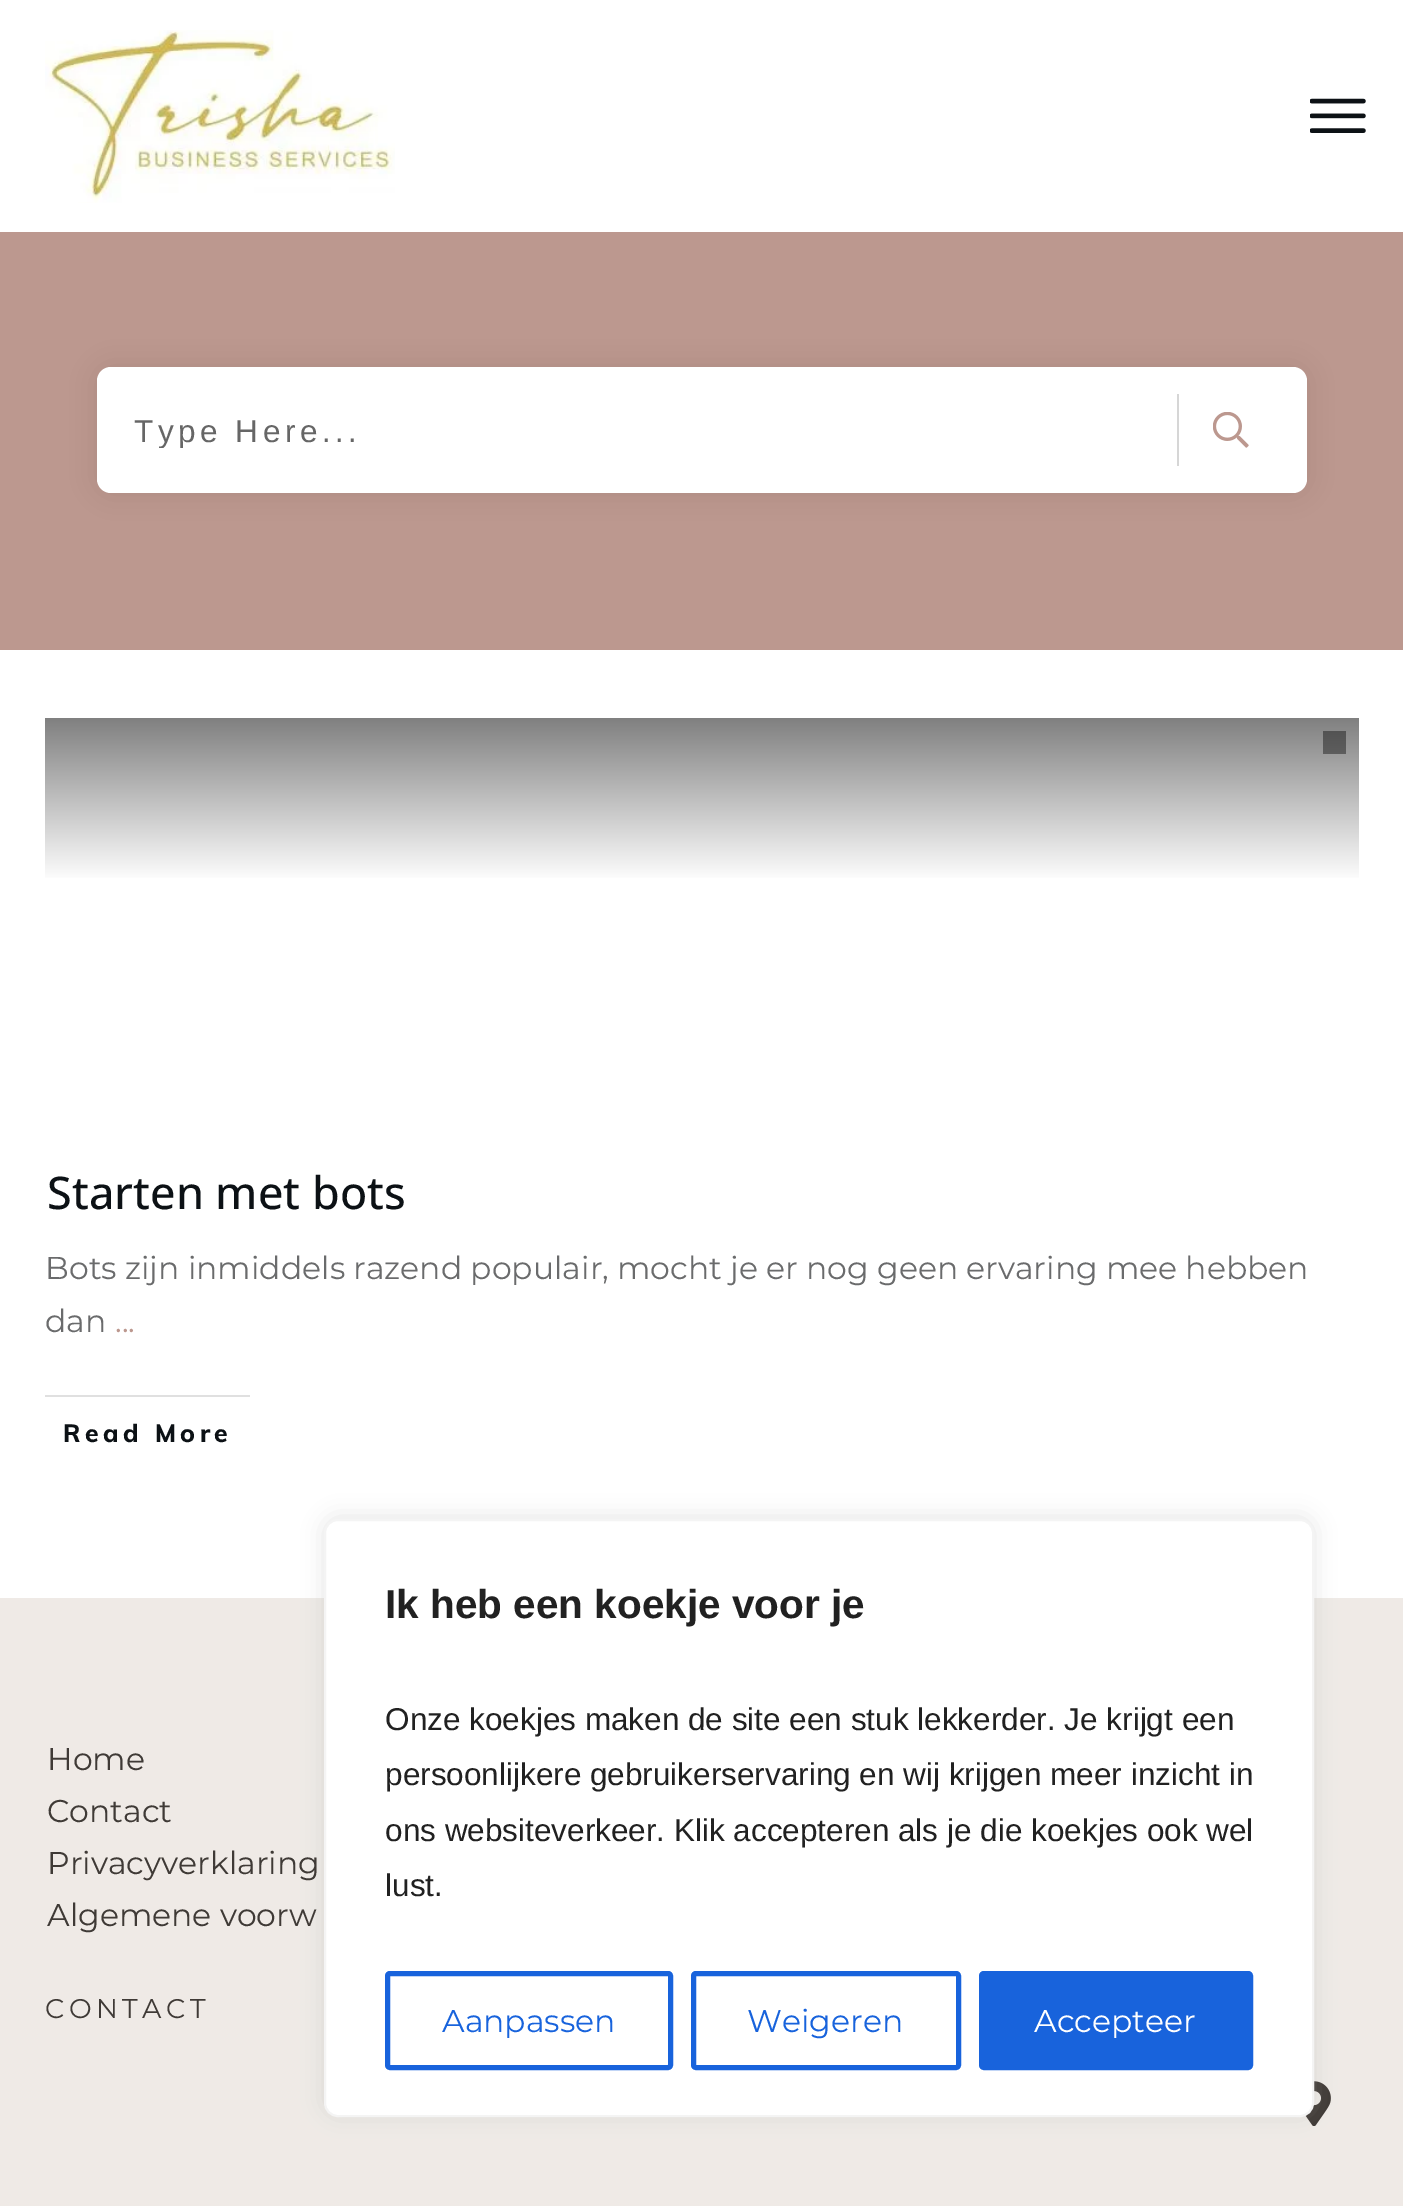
%!PS
<< /PageSize [1403 2206] /PageUsesTransparency true >> setpagedevice
/mt/moveto load def
/li/lineto load def
/cp/closepath load def
/fl/fill load def
/st/stroke load def
/gs/gsave load def
/gr/grestore load def
/lw/setlinewidth load def
/co { dup -16 bitshift 255 div exch dup -8 bitshift 255 and 255 div exch 255 and 255 div setrgbcolor } def
/fn { [ exch dup neg 0 0 3 -1 roll 0 0 ] selectfont } def
/tx { co fn moveto show } def
/bx { co rectfill } def
/al { dup .setfillconstantalpha .setstrokeconstantalpha } def
/rr { 5 dict begin { /r /h /w /y /x } { exch def } forall
  x r add y moveto x w add y 2 copy h add r arct x w add y h add x 1 index r arct
  x y h add x y r arct x y 2 copy exch w add exch r arct closepath end } def
/sh { 12 dict begin { /a /b /q /h /w /y /x } { exch def } forall gsave /was 0 def
  9 -2 -9 { dup b mul 4 div /e exch def 1 sub .425 mul 2.718 exch exp 1 add a .99 .min exch div /now exch def
    1 1 now sub 1 was sub div sub al /was now def
    w h .min e 2 mul add 0 gt { x e sub y e sub w e 2 mul add h e 2 mul add
      q e add b .6 mul add w h .min 2 div e add .min 0 .max rr fill } if } for grestore end } def
/im { 5 dict begin { /h /w /y /x /name } { exch def } forall
  gsave x y translate w h scale
  w h 8 [w 0 0 h 0 0] name (r) file false 3 colorimage grestore end } def
0 .pushpdf14devicefilter
0 2206 translate 1 -1 scale
4 setmiterlimit
0 0 1403 2206 16#FFFFFF bx
(media/1.raw) 45 30 350 173 im
(media/2.raw) 1310 98 56 35 im
0 232 1403 418 16#BC988F bx
16#000000 co
97 367 1210 126 14 12.5 .08 sh
16#FFFFFF co
97 367 1210 126 14 rr fl
1177 394 2 72 16#D6D6D6 bx
(media/3.raw) 1213 412 36 36 im
gs 45 718 mt 1359 718 li 1359 878 li 45 878 li cp clip newpath
<< /ShadingType 2 /ColorSpace /DeviceRGB /Coords [702 718 702 1127] /Extend [true true] /Function << /FunctionType 3 /Domain [0 1] /Functions [<< /FunctionType 2 /Domain [0 1] /C0 [.502 .502 .502] /C1 [1 1 1] /N 1 >> << /FunctionType 2 /Domain [0 1] /C0 [1 1 1] /C1 [1 1 1] /N 1 >>] /Bounds [.4] /Encode [0 1 0 1] >> >> shfill gr
gs 1323 731 mt 1346 731 li 1346 754 li 1323 754 li cp clip newpath
<< /ShadingType 2 /ColorSpace /DeviceRGB /Coords [702 718 702 1127] /Extend [true true] /Function << /FunctionType 3 /Domain [0 1] /Functions [<< /FunctionType 2 /Domain [0 1] /C0 [.302 .302 .302] /C1 [.6 .6 .6] /N 1 >> << /FunctionType 2 /Domain [0 1] /C0 [.6 .6 .6] /C1 [.6 .6 .6] /N 1 >>] /Bounds [.4] /Encode [0 1 0 1] >> >> shfill gr
45 1395 205 2 16#E0E0E0 bx
0 1598 1403 608 16#EFEAE6 bx
(media/4.raw) 1305 2081 26 45 im
16#ACABAB co
324 1517 990 598 14 11 .3 sh
16#FFFFFF co
325 1520 988 596 13 rr gs fl gr
16#F4F4F4 co
2 lw
st
16#1863DC co
5 lw
387.5 1973.5 283 94 2.5 rr st
693.5 1973.5 265 94 2.5 rr st
981.5 1973.5 269 94 2.5 rr gs fl gr
st
gs
133 412 1026 36 rectclip
/LiberationSans-Regular 31.5 fn
16#666666 co
134 442 mt 4.5 0 (Type Here...) ashow
gr
(Starten met bots) 47 1209 /OpenSans-Medium 45 16#0C1115 tx
(Bots zijn inmiddels razend populair, mocht je er nog geen ervaring mee hebben) 45 1279 /Montserrat-Regular 31.5 16#6A6B6C tx
(dan) 45 1332 /Montserrat-Regular 31.5 16#6A6B6C tx
(...) 115 1332 /Montserrat-Regular 31.5 16#BC988F tx
/Muli-ExtraBold 24.75 fn
16#0C1115 co
63 1442 mt 4.5 0 (Read More) ashow
(Home) 47 1770 /Montserrat-Regular 31.5 16#3F3A36 tx
(Contact) 47 1822 /Montserrat-Regular 31.5 16#3F3A36 tx
(Privacyverklaring) 47 1874 /Montserrat-Regular 31.5 16#3F3A36 tx
(Algemene voorw) 47 1926 /Montserrat-Regular 31.5 16#3F3A36 tx
/Montserrat-Regular 27 fn
45 2018 mt 4.5 0 (CONTACT) ashow
(Ik heb een koekje voor je) 385 1618 /LiberationSans-Bold 40.5 16#212121 tx
(Onze koekjes maken de site een stuk lekkerder. Je krijgt een) 385 1730 /LiberationSans-Regular 31.5 16#212121 tx
(persoonlijkere gebruikerservaring en wij krijgen meer inzicht in) 385 1785 /LiberationSans-Regular 31.5 16#212121 tx
(ons websiteverkeer. Klik accepteren als je die koekjes ook wel) 385 1841 /LiberationSans-Regular 31.5 16#212121 tx
(lust.) 385 1896 /LiberationSans-Regular 31.5 16#212121 tx
(Aanpassen) 442 2032 /Montserrat-Regular 31.5 16#1863DC tx
(Weigeren) 747 2032 /Montserrat-Regular 31.5 16#1863DC tx
(Accepteer) 1034 2032 /Montserrat-Regular 31.5 16#FFFFFF tx
.poppdf14devicefilter showpage
